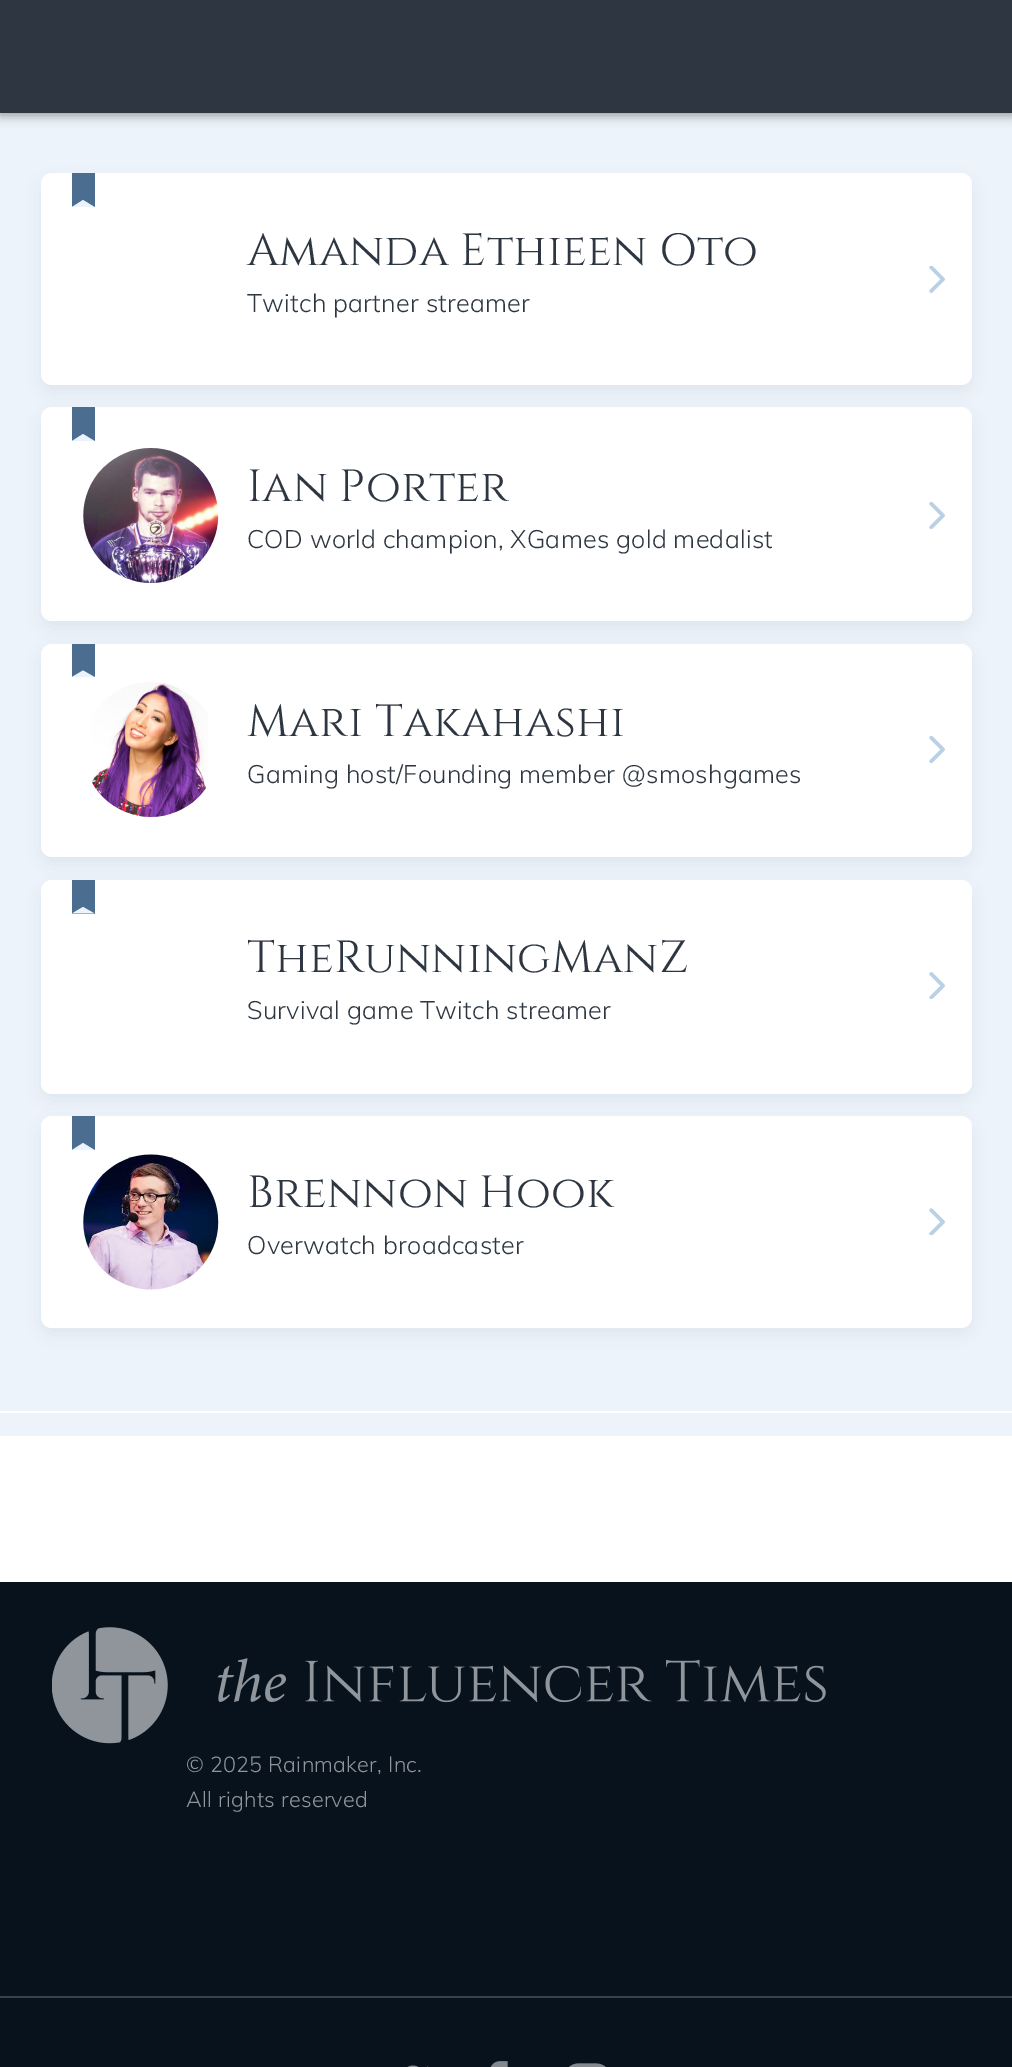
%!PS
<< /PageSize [1012 2067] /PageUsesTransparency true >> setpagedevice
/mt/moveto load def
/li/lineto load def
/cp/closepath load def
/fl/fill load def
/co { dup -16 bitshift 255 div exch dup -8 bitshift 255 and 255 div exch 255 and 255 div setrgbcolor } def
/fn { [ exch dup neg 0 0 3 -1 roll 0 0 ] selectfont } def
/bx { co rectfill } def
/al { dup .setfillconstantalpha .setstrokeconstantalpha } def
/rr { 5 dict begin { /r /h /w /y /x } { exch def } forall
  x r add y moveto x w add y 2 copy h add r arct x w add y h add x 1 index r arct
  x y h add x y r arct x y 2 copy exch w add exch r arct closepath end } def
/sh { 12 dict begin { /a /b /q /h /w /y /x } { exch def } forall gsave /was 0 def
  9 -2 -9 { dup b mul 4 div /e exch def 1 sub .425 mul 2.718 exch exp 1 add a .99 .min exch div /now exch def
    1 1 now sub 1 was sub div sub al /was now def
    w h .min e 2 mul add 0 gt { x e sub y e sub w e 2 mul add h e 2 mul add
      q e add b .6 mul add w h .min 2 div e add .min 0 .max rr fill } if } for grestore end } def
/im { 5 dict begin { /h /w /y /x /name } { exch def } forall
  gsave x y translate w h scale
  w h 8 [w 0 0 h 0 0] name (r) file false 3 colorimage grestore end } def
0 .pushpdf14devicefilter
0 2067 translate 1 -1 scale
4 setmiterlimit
0 0 1012 2067 16#FFFFFF bx
0 113 1012 1323 16#ECF3FA bx
16#000000 co
0 2 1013 113 0 5.5 .4 sh
0 0 1012 113 16#2E3741 bx
16#000000 co
41 180 931 212 11 9 .05 sh
16#FFFFFF co
41 173 931 212 11 rr fl
72 173 23 34 16#4B6E90 bx
16#ECF3FA co
94.5 207 mt 72 207 li 83 200 li cp fl
(media/1.raw) 929 266 16 27 im
16#000000 co
41 414 931 214 11 9 .05 sh
16#FFFFFF co
41 407 931 214 11 rr fl
72 407 23 34 16#4B6E90 bx
16#ECF3FA co
94.5 441 mt 72 441 li 83 434 li cp fl
(media/2.raw) 83 448 136 135 im
(media/3.raw) 929 502 16 27 im
16#000000 co
41 650 931 214 11 9 .05 sh
16#FFFFFF co
41 644 931 213 11 rr fl
72 644 23 33 16#4B6E90 bx
16#ECF3FA co
94.5 677 mt 72 677 li 83 670.5 li cp fl
(media/4.raw) 91 682 117 135 im
(media/5.raw) 929 736 16 28 im
16#000000 co
41 887 931 213 11 9 .05 sh
16#FFFFFF co
41 880 931 214 11 rr fl
72 880 23 34 16#4B6E90 bx
16#ECF3FA co
94.5 913.5 mt 72 913.5 li 83 907 li cp fl
(media/6.raw) 929 972 16 27 im
16#000000 co
41 1123 931 211 11 9 .05 sh
16#FFFFFF co
41 1116 931 212 11 rr fl
72 1116 23 34 16#4B6E90 bx
16#ECF3FA co
94.5 1150 mt 72 1150 li 83 1143 li cp fl
(media/7.raw) 83 1154 136 136 im
(media/8.raw) 929 1208 16 27 im
0 1411 1012 2 16#FFFFFF bx
0 1582 1012 485 16#07121D bx
(media/9.raw) 52 1627 774 117 im
0 1996 1012 2 16#39414A bx
(media/10.raw) 407 2065 21 2 im
(media/11.raw) 490 2061 18 6 im
(media/12.raw) 569 2063 37 4 im
/Cinzel-Regular 45 fn
16#2E3741 co
247 265 mt .25 0 (Amanda Ethieen Oto) ashow
/Muli-Light 25.2 fn
247 312 mt .25 0 (Twitch partner streamer) ashow
/Cinzel-Regular 45 fn
247 501 mt .25 0 (Ian Porter) ashow
/Muli-Light 25.2 fn
247 548 mt .25 0 (COD world champion, XGames gold medalist) ashow
/Cinzel-Regular 45 fn
247 736 mt .25 0 (Mari Takahashi) ashow
/Muli-Light 25.2 fn
247 783 mt .25 0 (Gaming host/Founding member @smoshgames) ashow
/Cinzel-Regular 45 fn
247 972 mt .25 0 (TheRunningManZ) ashow
/Muli-Light 25.2 fn
247 1019 mt .25 0 (Survival game Twitch streamer) ashow
/Cinzel-Regular 45 fn
247 1207 mt .25 0 (Brennon Hook) ashow
/Muli-Light 25.2 fn
247 1254 mt .25 0 (Overwatch broadcaster) ashow
/Muli-Light 21.6 fn
16#8F959B co
186 1772 mt .25 0 (© 2025 Rainmaker, Inc.) ashow
186 1807 mt .25 0 (All rights reserved) ashow
.poppdf14devicefilter showpage
